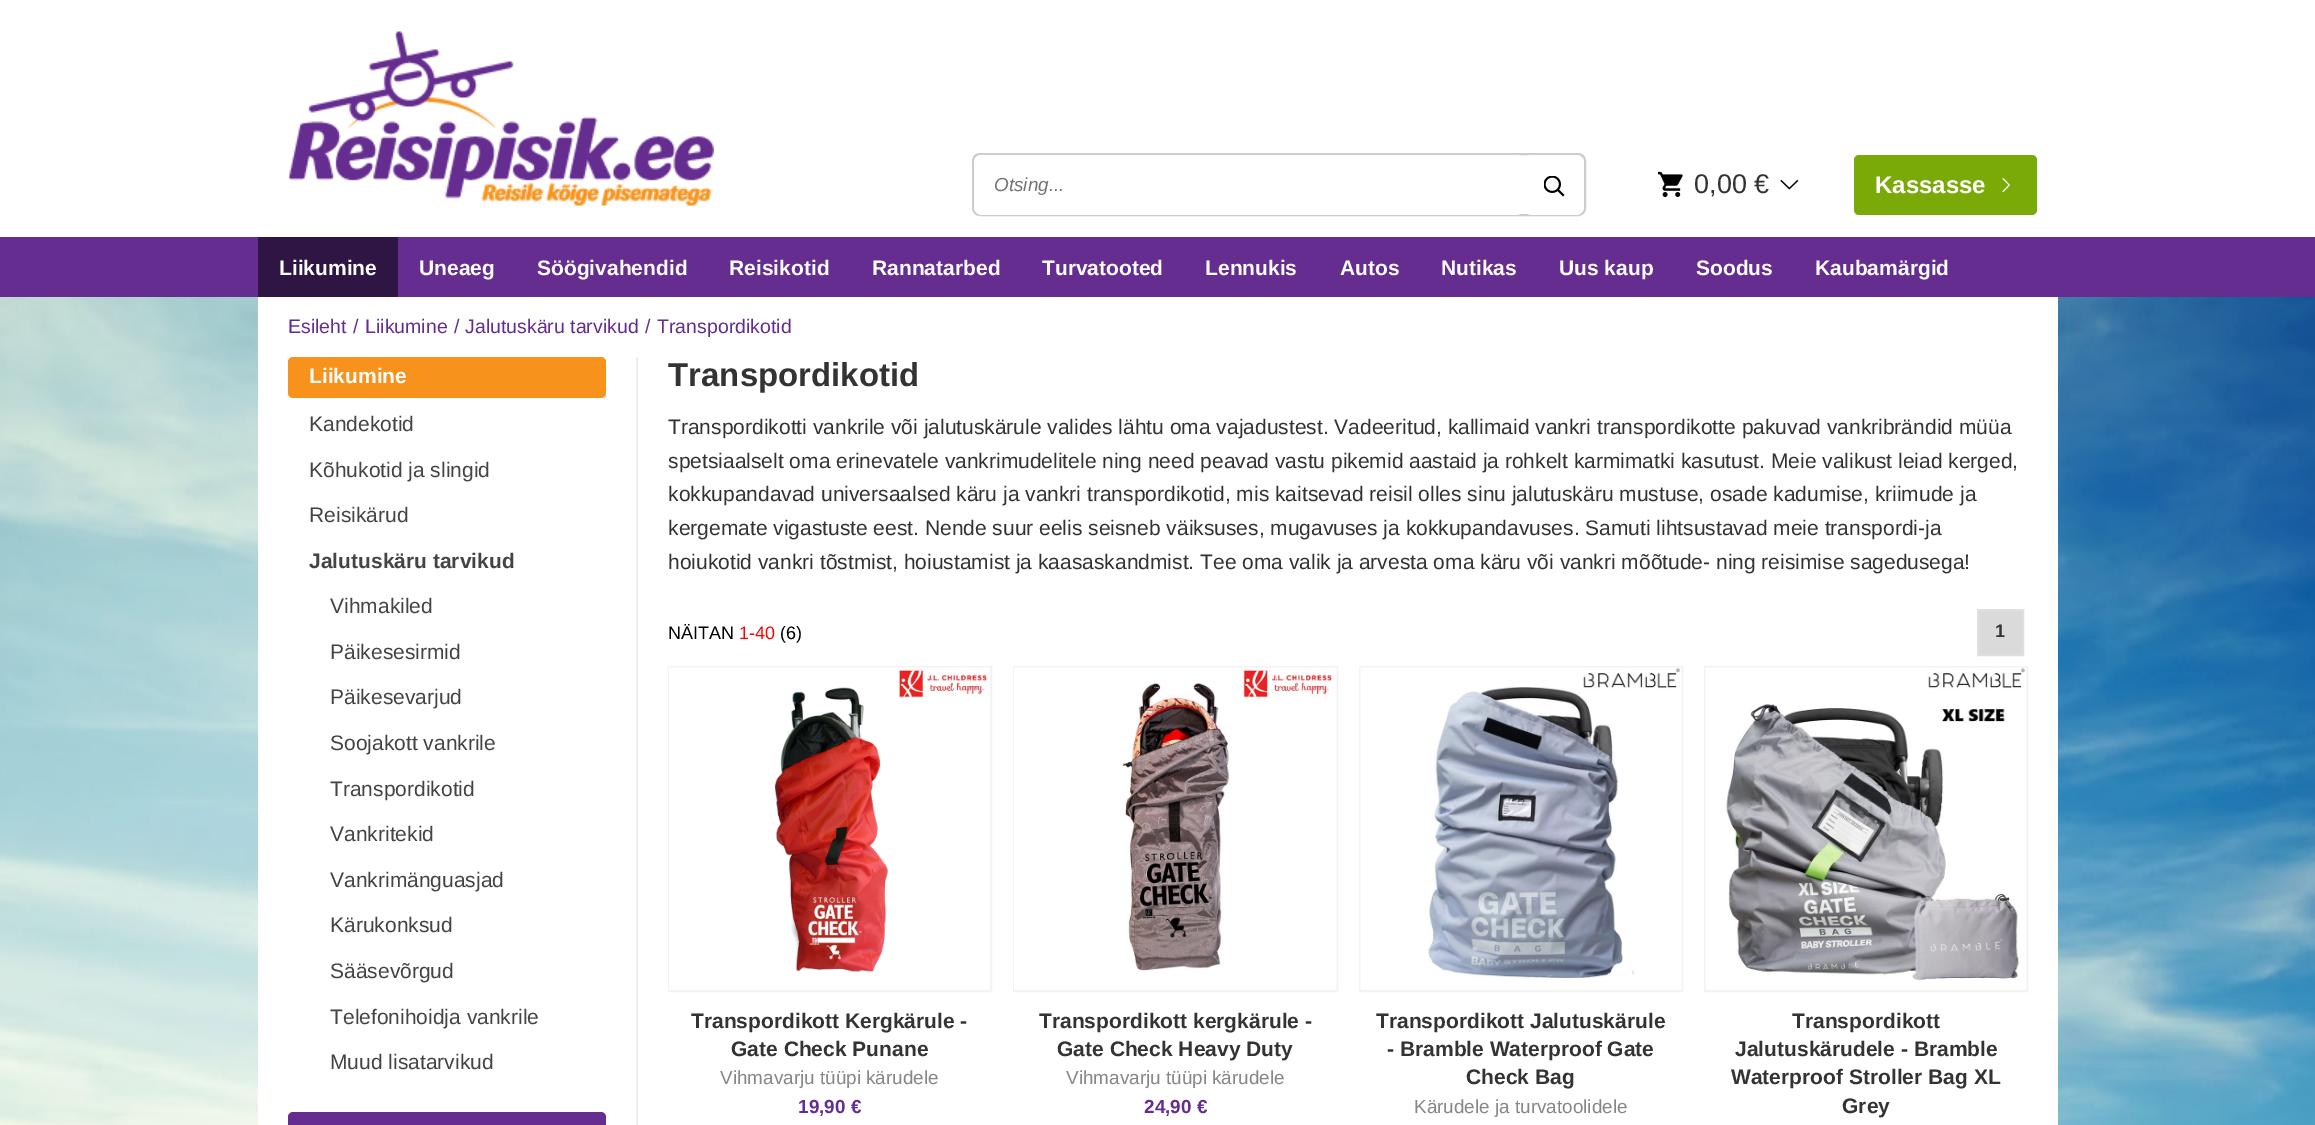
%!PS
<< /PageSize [2315 1125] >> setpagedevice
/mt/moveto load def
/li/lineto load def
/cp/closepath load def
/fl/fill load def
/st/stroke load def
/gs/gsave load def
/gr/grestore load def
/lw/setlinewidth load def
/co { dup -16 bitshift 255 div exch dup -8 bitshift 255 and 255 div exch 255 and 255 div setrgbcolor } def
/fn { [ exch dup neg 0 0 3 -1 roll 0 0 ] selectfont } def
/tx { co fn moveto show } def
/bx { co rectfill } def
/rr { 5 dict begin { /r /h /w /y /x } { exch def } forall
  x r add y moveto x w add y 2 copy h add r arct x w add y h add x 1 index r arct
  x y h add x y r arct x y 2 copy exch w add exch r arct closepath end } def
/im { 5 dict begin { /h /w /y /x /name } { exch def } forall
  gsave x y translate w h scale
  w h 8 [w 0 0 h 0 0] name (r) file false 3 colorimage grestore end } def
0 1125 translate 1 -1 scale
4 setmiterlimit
0 0 2315 1125 16#FFFFFF bx
(media/1.raw) 0 297 2315 828 im
(media/2.raw) 289 31 425 175 im
16#CCCCCC co
2 lw
973 154 612 61 7 rr st
16#FFFFFF co
974 155 550 60 8 rr fl
1524 155 60 60 8 rr fl
(media/3.raw) 1544 176 21 21 im
(media/4.raw) 1658 171 25 26 im
(media/5.raw) 1780 179 19 11 im
16#79AA07 co
1854 155 183 60 5 rr fl
(media/6.raw) 2002 178 8 15 im
0 237 2315 60 16#662D91 bx
258 237 140 60 16#2F1543 bx
258 297 1800 828 16#FFFFFF bx
16#F7931D co
288 357 318 41 5 rr fl
16#662D91 co
288 1112 318 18 5 rr fl
636 357 2 768 16#EEEEEE bx
16#DADADA co
1978 610 mt 2023 610 li 2023 655 li 1978 655 li cp gs fl gr
16#DFDFDF co
st
16#F3F3F3 co
669 667 322 324 rectstroke
(media/7.raw) 669 667 321 323 im
1014 667 323 324 rectstroke
(media/8.raw) 1014 667 323 323 im
1360 667 322 324 rectstroke
(media/9.raw) 1360 667 322 323 im
1705 667 322 324 rectstroke
(media/10.raw) 1705 667 322 323 im
(Otsing...) 994 191 /LiberationSans-Italic 18.9 16#757575 tx
(0,00 €) 1694 193 /LiberationSans-Regular 27 16#333333 tx
(Kassasse) 1875 193 /LiberationSans-Bold 24 16#FFFFFF tx
(Liikumine) 279 275 /LiberationSans-Bold 21 16#FFFFFF tx
(Uneaeg) 419 275 /LiberationSans-Bold 21 16#FFFFFF tx
(Söögivahendid) 537 275 /LiberationSans-Bold 21 16#FFFFFF tx
(Reisikotid) 729 275 /LiberationSans-Bold 21 16#FFFFFF tx
(Rannatarbed) 872 275 /LiberationSans-Bold 21 16#FFFFFF tx
(Turvatooted) 1042 275 /LiberationSans-Bold 21 16#FFFFFF tx
(Lennukis) 1205 275 /LiberationSans-Bold 21 16#FFFFFF tx
(Autos) 1340 275 /LiberationSans-Bold 21 16#FFFFFF tx
(Nutikas) 1441 275 /LiberationSans-Bold 21 16#FFFFFF tx
(Uus kaup) 1559 275 /LiberationSans-Bold 21 16#FFFFFF tx
(Soodus) 1696 275 /LiberationSans-Bold 21 16#FFFFFF tx
(Kaubamärgid) 1815 275 /LiberationSans-Bold 21 16#FFFFFF tx
(Esileht) 288 333 /LiberationSans-Regular 19.5 16#662D91 tx
(/) 353 333 /LiberationSans-Regular 19.5 16#662D91 tx
(Liikumine) 365 333 /LiberationSans-Regular 19.5 16#662D91 tx
(/) 454 333 /LiberationSans-Regular 19.5 16#662D91 tx
(Jalutuskäru tarvikud) 465 333 /LiberationSans-Regular 19.5 16#662D91 tx
(/) 645 333 /LiberationSans-Regular 19.5 16#662D91 tx
(Transpordikotid) 657 333 /LiberationSans-Regular 19.5 16#662D91 tx
(Liikumine) 309 383 /LiberationSans-Bold 21 16#FFFFFF tx
(Kandekotid) 309 431 /LiberationSans-Regular 21 16#444444 tx
(Kõhukotid ja slingid) 309 477 /LiberationSans-Regular 21 16#444444 tx
(Reisikärud) 309 522 /LiberationSans-Regular 21 16#444444 tx
(Jalutuskäru tarvikud) 309 568 /LiberationSans-Bold 21 16#444444 tx
(Vihmakiled) 330 613 /LiberationSans-Regular 21 16#444444 tx
(Päikesesirmid) 330 659 /LiberationSans-Regular 21 16#444444 tx
(Päikesevarjud) 330 704 /LiberationSans-Regular 21 16#444444 tx
(Soojakott vankrile) 330 750 /LiberationSans-Regular 21 16#444444 tx
(Transpordikotid) 330 796 /LiberationSans-Regular 21 16#444444 tx
(Vankritekid) 330 841 /LiberationSans-Regular 21 16#444444 tx
(Vankrimänguasjad) 330 887 /LiberationSans-Regular 21 16#444444 tx
(Kärukonksud) 330 932 /LiberationSans-Regular 21 16#444444 tx
(Sääsevõrgud) 330 978 /LiberationSans-Regular 21 16#444444 tx
(Telefonihoidja vankrile) 330 1024 /LiberationSans-Regular 21 16#444444 tx
(Muud lisatarvikud) 330 1069 /LiberationSans-Regular 21 16#444444 tx
(Transpordikotid) 668 386 /LiberationSans-Bold 33 16#333333 tx
(Transpordikotti vankrile või jalutuskärule valides lähtu oma vajadustest. Vadeeritud, kallimaid vankri transpordikotte pakuvad vankribrändid müüa) 668 434 /LiberationSans-Regular 21 16#333333 tx
(spetsiaalselt oma erinevatele vankrimudelitele ning need peavad vastu pikemid aastaid ja rohkelt karmimatki kasutust. Meie valikust leiad kerged,) 668 468 /LiberationSans-Regular 21 16#333333 tx
(kokkupandavad universaalsed käru ja vankri transpordikotid, mis kaitsevad reisil olles sinu jalutuskäru mustuse, osade kadumise, kriimude ja) 668 501 /LiberationSans-Regular 21 16#333333 tx
(kergemate vigastuste eest. Nende suur eelis seisneb väiksuses, mugavuses ja kokkupandavuses. Samuti lihtsustavad meie transpordi-ja) 668 535 /LiberationSans-Regular 21 16#333333 tx
(hoiukotid vankri tõstmist, hoiustamist ja kaasaskandmist. Tee oma valik ja arvesta oma käru või vankri mõõtude- ning reisimise sagedusega!) 668 569 /LiberationSans-Regular 21 16#333333 tx
(NÄITAN) 668 639 /LiberationSans-Regular 18 16#000000 tx
(1-40) 739 639 /LiberationSans-Regular 18 16#FF0000 tx
(\(6\)) 780 639 /LiberationSans-Regular 18 16#000000 tx
(1) 1995 637 /LiberationSans-Bold 18 16#333333 tx
(Transpordikott Kergkärule -) 691 1028 /LiberationSans-Bold 21 16#333333 tx
(Gate Check Punane) 731 1056 /LiberationSans-Bold 21 16#333333 tx
(Vihmavarju tüüpi kärudele) 720 1084 /LiberationSans-Regular 18.9 16#878787 tx
(19,90 €) 798 1113 /LiberationSans-Bold 18.9 16#662D91 tx
(Transpordikott kergkärule -) 1039 1028 /LiberationSans-Bold 21 16#333333 tx
(Gate Check Heavy Duty) 1057 1056 /LiberationSans-Bold 21 16#333333 tx
(Vihmavarju tüüpi kärudele) 1066 1084 /LiberationSans-Regular 18.9 16#878787 tx
(24,90 €) 1144 1113 /LiberationSans-Bold 18.9 16#662D91 tx
(Transpordikott Jalutuskärule) 1376 1028 /LiberationSans-Bold 21 16#333333 tx
(- Bramble Waterproof Gate) 1387 1056 /LiberationSans-Bold 21 16#333333 tx
(Check Bag) 1466 1084 /LiberationSans-Bold 21 16#333333 tx
(Kärudele ja turvatoolidele) 1414 1113 /LiberationSans-Regular 18.9 16#878787 tx
(Transpordikott) 1792 1028 /LiberationSans-Bold 21 16#333333 tx
(Jalutuskärudele - Bramble) 1735 1056 /LiberationSans-Bold 21 16#333333 tx
(Waterproof Stroller Bag XL) 1731 1084 /LiberationSans-Bold 21 16#333333 tx
(Grey) 1842 1113 /LiberationSans-Bold 21 16#333333 tx
showpage
